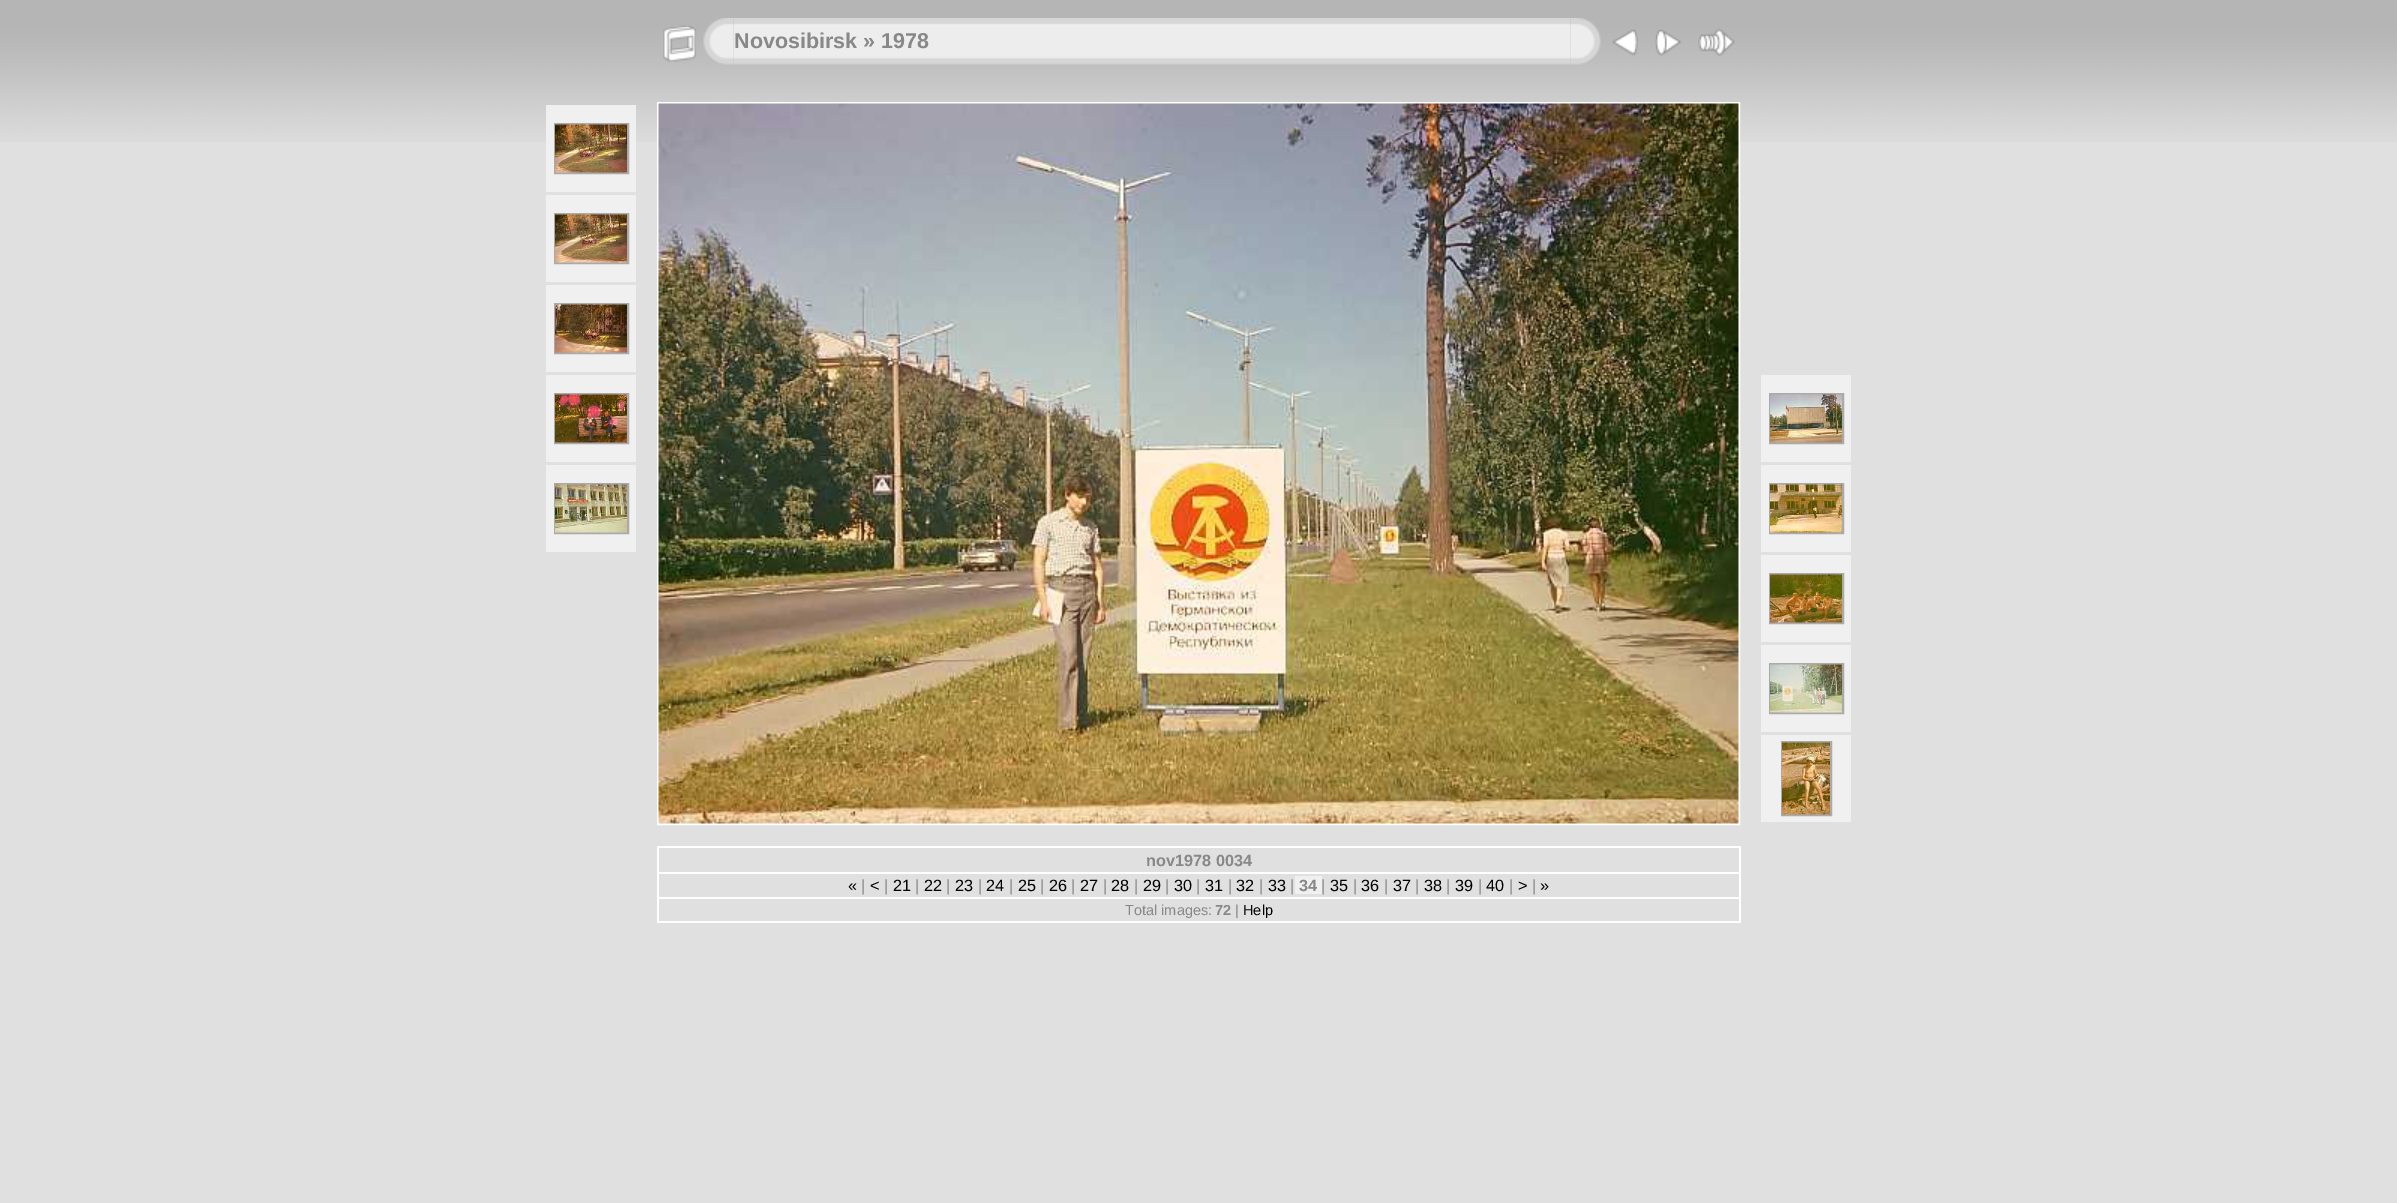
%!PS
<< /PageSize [2397 1203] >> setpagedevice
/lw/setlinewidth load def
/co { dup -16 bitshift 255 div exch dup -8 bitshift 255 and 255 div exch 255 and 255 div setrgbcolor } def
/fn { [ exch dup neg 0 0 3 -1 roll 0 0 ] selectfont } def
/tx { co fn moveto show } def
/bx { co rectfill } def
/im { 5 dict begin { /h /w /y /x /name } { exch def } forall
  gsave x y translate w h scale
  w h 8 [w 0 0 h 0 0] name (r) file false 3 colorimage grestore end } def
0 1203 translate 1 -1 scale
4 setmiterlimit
0 0 2397 1203 16#E0E0E0 bx
(media/1.raw) 0 0 2397 142 im
(media/2.raw) 663 25 34 37 im
(media/4.raw) 733 18 838 47 im
(media/3.raw) 703 18 31 47 im
(media/5.raw) 1570 18 31 47 im
(media/6.raw) 1612 29 26 27 im
(media/7.raw) 1655 29 27 27 im
(media/8.raw) 1698 28 37 28 im
546 105 90 87 16#F0F0F0 bx
16#AAAAAA co
2 lw
555 124 73 49 rectstroke
(media/9.raw) 555 124 72 49 im
546 195 90 87 16#F0F0F0 bx
16#AAAAAA co
555 214 73 49 rectstroke
(media/10.raw) 555 214 72 49 im
546 285 90 87 16#F0F0F0 bx
16#AAAAAA co
555 304 73 49 rectstroke
(media/11.raw) 555 304 72 49 im
546 375 90 87 16#F0F0F0 bx
16#AAAAAA co
555 394 73 49 rectstroke
(media/12.raw) 555 394 72 49 im
546 465 90 87 16#F0F0F0 bx
16#AAAAAA co
555 484 73 49 rectstroke
(media/13.raw) 555 484 72 49 im
16#FFFFFF co
658 103 1081 721 rectstroke
(media/14.raw) 658 103 1081 721 im
1761 375 90 87 16#F0F0F0 bx
16#AAAAAA co
1770 394 73 49 rectstroke
(media/15.raw) 1770 394 72 49 im
1761 465 90 87 16#F0F0F0 bx
16#AAAAAA co
1770 484 73 49 rectstroke
(media/16.raw) 1770 484 72 49 im
1761 555 90 87 16#F0F0F0 bx
16#AAAAAA co
1770 574 73 49 rectstroke
(media/17.raw) 1770 574 72 49 im
1761 645 90 87 16#F0F0F0 bx
16#AAAAAA co
1770 664 73 49 rectstroke
(media/18.raw) 1770 664 72 49 im
1761 735 90 87 16#F0F0F0 bx
16#AAAAAA co
1782 742 49 73 rectstroke
(media/19.raw) 1782 742 48 73 im
657 846 1083 2 16#FFFFFF bx
1739 846 2 77 16#FFFFFF bx
657 921 1083 2 16#FFFFFF bx
657 846 2 77 16#FFFFFF bx
657 872 1083 2 16#FFFFFF bx
1295 876 27 18 16#F0F0F0 bx
657 897 1083 2 16#FFFFFF bx
(Novosibirsk » 1978) 734 48 /LiberationSans-Bold 21.5 16#888888 tx
(nov1978 0034) 1146 866 /LiberationSans-Bold 16.25 16#888888 tx
(«) 848 891 /LiberationSans-Regular 16.25 16#000000 tx
(|) 861 891 /LiberationSans-Regular 16.25 16#888888 tx
(<) 870 891 /LiberationSans-Regular 16.25 16#000000 tx
(|) 884 891 /LiberationSans-Regular 16.25 16#888888 tx
(21) 893 891 /LiberationSans-Regular 16.25 16#000000 tx
(|) 915 891 /LiberationSans-Regular 16.25 16#888888 tx
(22) 924 891 /LiberationSans-Regular 16.25 16#000000 tx
(|) 946 891 /LiberationSans-Regular 16.25 16#888888 tx
(23) 955 891 /LiberationSans-Regular 16.25 16#000000 tx
(|) 978 891 /LiberationSans-Regular 16.25 16#888888 tx
(24) 986 891 /LiberationSans-Regular 16.25 16#000000 tx
(|) 1009 891 /LiberationSans-Regular 16.25 16#888888 tx
(25) 1018 891 /LiberationSans-Regular 16.25 16#000000 tx
(|) 1040 891 /LiberationSans-Regular 16.25 16#888888 tx
(26) 1049 891 /LiberationSans-Regular 16.25 16#000000 tx
(|) 1071 891 /LiberationSans-Regular 16.25 16#888888 tx
(27) 1080 891 /LiberationSans-Regular 16.25 16#000000 tx
(|) 1103 891 /LiberationSans-Regular 16.25 16#888888 tx
(28) 1111 891 /LiberationSans-Regular 16.25 16#000000 tx
(|) 1134 891 /LiberationSans-Regular 16.25 16#888888 tx
(29) 1143 891 /LiberationSans-Regular 16.25 16#000000 tx
(|) 1165 891 /LiberationSans-Regular 16.25 16#888888 tx
(30) 1174 891 /LiberationSans-Regular 16.25 16#000000 tx
(|) 1196 891 /LiberationSans-Regular 16.25 16#888888 tx
(31) 1205 891 /LiberationSans-Regular 16.25 16#000000 tx
(|) 1228 891 /LiberationSans-Regular 16.25 16#888888 tx
(32) 1236 891 /LiberationSans-Regular 16.25 16#000000 tx
(|) 1259 891 /LiberationSans-Regular 16.25 16#888888 tx
(33) 1268 891 /LiberationSans-Regular 16.25 16#000000 tx
(|) 1290 891 /LiberationSans-Regular 16.25 16#888888 tx
(34) 1299 891 /LiberationSans-Bold 16.25 16#888888 tx
(|) 1321 891 /LiberationSans-Regular 16.25 16#888888 tx
(35) 1330 891 /LiberationSans-Regular 16.25 16#000000 tx
(|) 1353 891 /LiberationSans-Regular 16.25 16#888888 tx
(36) 1361 891 /LiberationSans-Regular 16.25 16#000000 tx
(|) 1384 891 /LiberationSans-Regular 16.25 16#888888 tx
(37) 1393 891 /LiberationSans-Regular 16.25 16#000000 tx
(|) 1415 891 /LiberationSans-Regular 16.25 16#888888 tx
(38) 1424 891 /LiberationSans-Regular 16.25 16#000000 tx
(|) 1446 891 /LiberationSans-Regular 16.25 16#888888 tx
(39) 1455 891 /LiberationSans-Regular 16.25 16#000000 tx
(|) 1478 891 /LiberationSans-Regular 16.25 16#888888 tx
(40) 1486 891 /LiberationSans-Regular 16.25 16#000000 tx
(|) 1509 891 /LiberationSans-Regular 16.25 16#888888 tx
(>) 1518 891 /LiberationSans-Regular 16.25 16#000000 tx
(|) 1532 891 /LiberationSans-Regular 16.25 16#888888 tx
(») 1540 891 /LiberationSans-Regular 16.25 16#000000 tx
(Total images:) 1125 915 /LiberationSans-Regular 14.5 16#888888 tx
(72) 1215 915 /LiberationSans-Bold 14.5 16#888888 tx
(|) 1235 915 /LiberationSans-Regular 14.5 16#888888 tx
(Help) 1243 915 /LiberationSans-Regular 14.5 16#000000 tx
showpage
